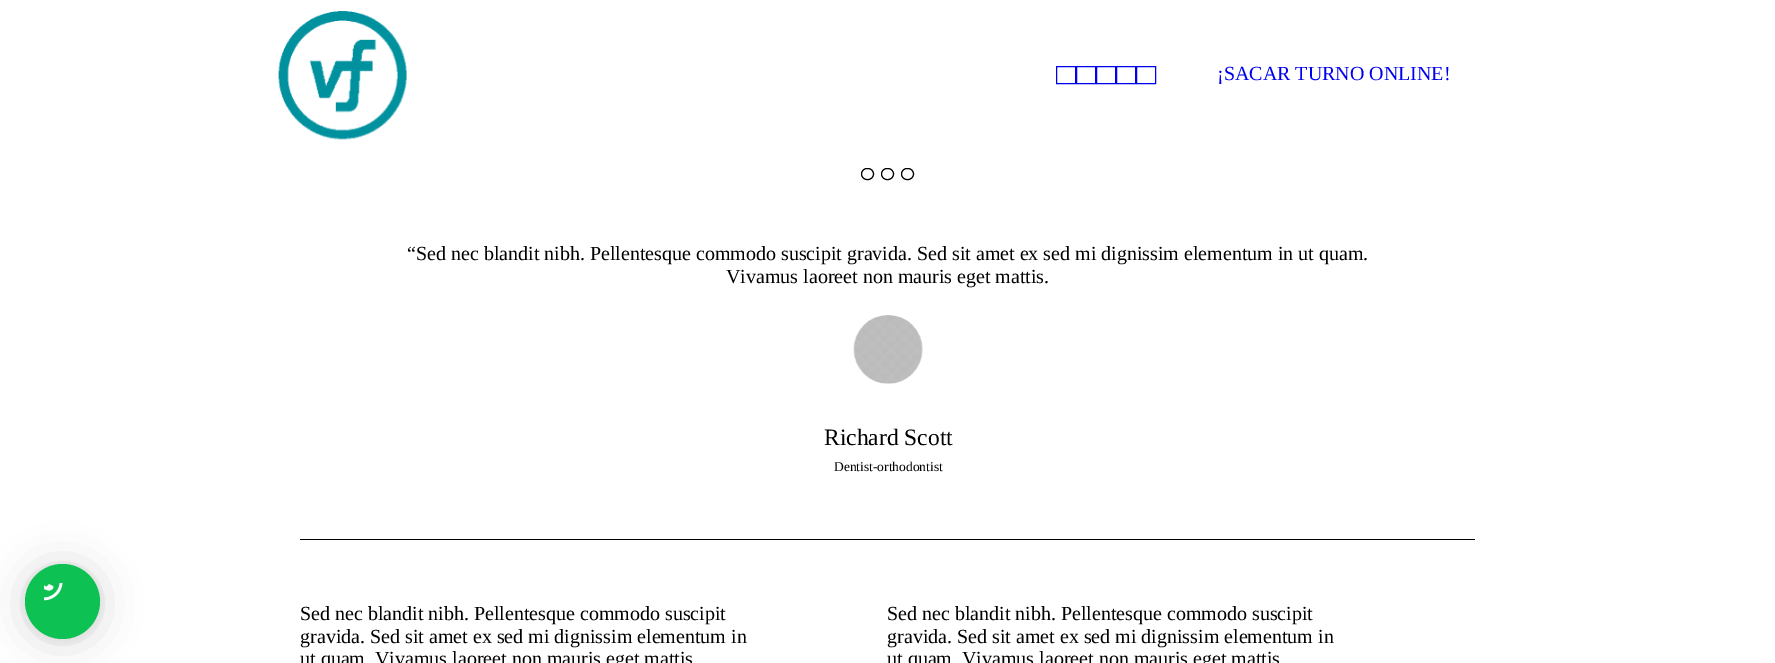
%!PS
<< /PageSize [1775 663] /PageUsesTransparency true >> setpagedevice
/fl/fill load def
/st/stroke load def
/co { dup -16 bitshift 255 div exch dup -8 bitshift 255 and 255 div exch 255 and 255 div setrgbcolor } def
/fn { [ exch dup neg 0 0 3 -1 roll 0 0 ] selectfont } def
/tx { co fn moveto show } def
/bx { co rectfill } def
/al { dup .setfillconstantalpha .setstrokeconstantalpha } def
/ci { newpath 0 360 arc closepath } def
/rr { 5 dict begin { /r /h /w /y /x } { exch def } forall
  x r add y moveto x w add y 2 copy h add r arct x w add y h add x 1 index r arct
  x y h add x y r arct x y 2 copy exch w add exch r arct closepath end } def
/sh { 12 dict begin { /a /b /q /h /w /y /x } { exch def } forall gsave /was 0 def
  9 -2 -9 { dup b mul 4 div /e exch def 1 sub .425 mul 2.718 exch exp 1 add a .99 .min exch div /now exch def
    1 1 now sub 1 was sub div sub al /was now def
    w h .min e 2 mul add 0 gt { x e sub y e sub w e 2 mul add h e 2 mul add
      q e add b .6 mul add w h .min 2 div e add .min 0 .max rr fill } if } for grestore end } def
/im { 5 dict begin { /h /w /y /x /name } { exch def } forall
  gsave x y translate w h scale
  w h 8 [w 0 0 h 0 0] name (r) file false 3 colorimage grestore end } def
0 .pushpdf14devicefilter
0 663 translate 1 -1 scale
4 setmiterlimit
0 0 1775 663 16#FFFFFF bx
16#000000 co
25 566 75 75 37.5 20 .16 sh
25 565 75 75 37.5 4 .06 sh
16#0DC152 co
62.5 601.5 37.5 ci fl
(media/1.raw) 44 583 19 18 im
(media/2.raw) 278 11 129 129 im
16#0000EE co
1056.5 66.5 19 17 rectstroke
1076.5 66.5 19 17 rectstroke
1096.5 66.5 19 17 rectstroke
1116.5 66.5 19 17 rectstroke
1136.5 66.5 19 17 rectstroke
16#000000 co
861.5 168.5 12 11 5.5 rr st
881.5 168.5 12 11 5.5 rr st
901.5 168.5 12 11 5.5 rr st
(media/3.raw) 853 315 70 69 im
300 539 1175 1 16#000000 bx
(¡SACAR TURNO ONLINE!) 1217 80 /LiberationSerif-Regular 20 16#0000EE tx
(“Sed nec blandit nibh. Pellentesque commodo suscipit gravida. Sed sit amet ex sed mi dignissim elementum in ut quam.) 407 260 /LiberationSerif-Regular 20 16#000000 tx
(Vivamus laoreet non mauris eget mattis.) 726 283 /LiberationSerif-Regular 20 16#000000 tx
(Richard Scott) 824 445 /LiberationSerif-Regular 23.5 16#000000 tx
(Dentist-orthodontist) 834 471 /LiberationSerif-Regular 13.5 16#000000 tx
(Sed nec blandit nibh. Pellentesque commodo suscipit) 300 620 /LiberationSerif-Regular 20 16#000000 tx
(gravida. Sed sit amet ex sed mi dignissim elementum in) 300 643 /LiberationSerif-Regular 20 16#000000 tx
(ut quam. Vivamus laoreet non mauris eget mattis) 300 665 /LiberationSerif-Regular 20 16#000000 tx
(Sed nec blandit nibh. Pellentesque commodo suscipit) 887 620 /LiberationSerif-Regular 20 16#000000 tx
(gravida. Sed sit amet ex sed mi dignissim elementum in) 887 643 /LiberationSerif-Regular 20 16#000000 tx
(ut quam. Vivamus laoreet non mauris eget mattis) 887 665 /LiberationSerif-Regular 20 16#000000 tx
.poppdf14devicefilter showpage
